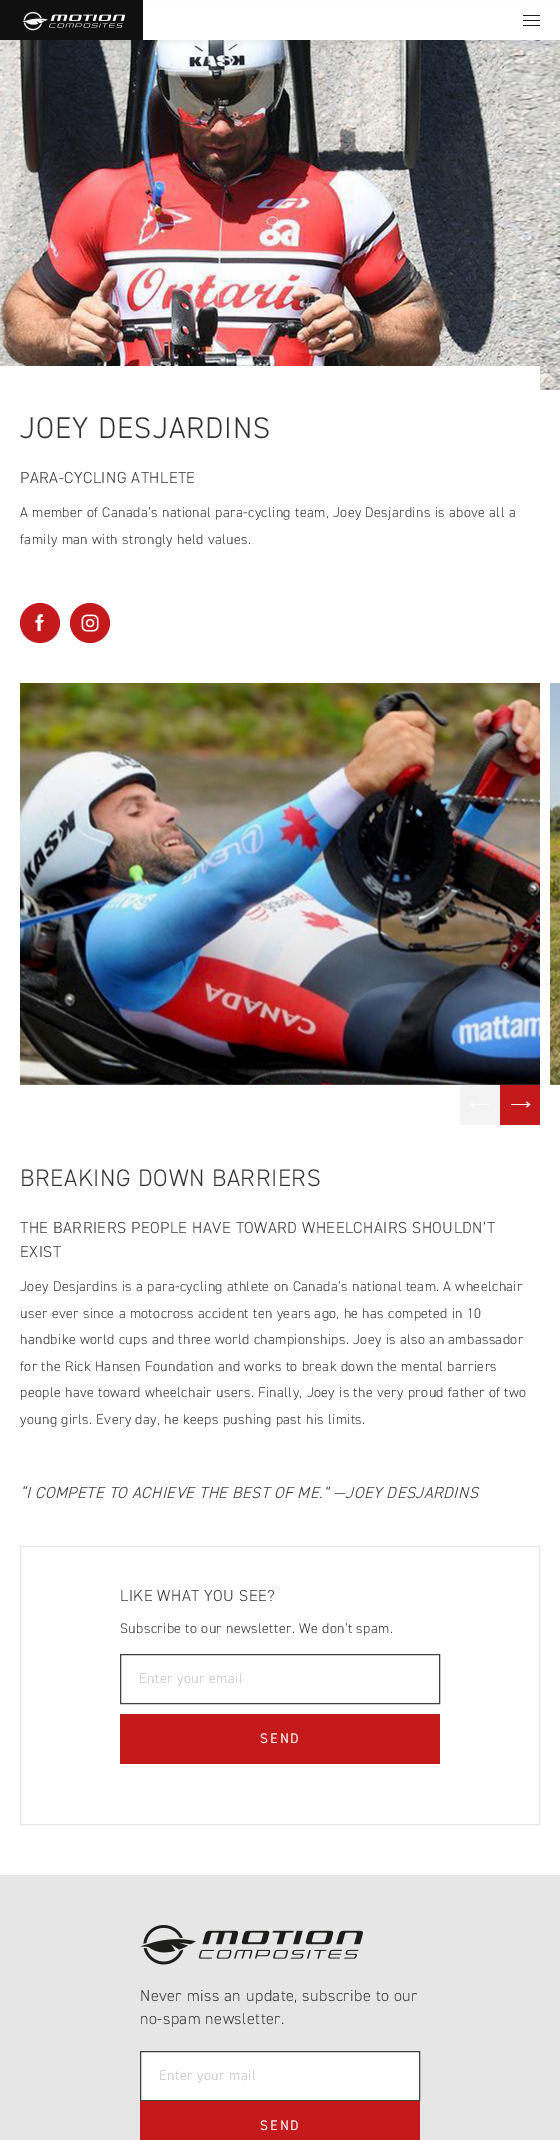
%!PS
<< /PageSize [560 2140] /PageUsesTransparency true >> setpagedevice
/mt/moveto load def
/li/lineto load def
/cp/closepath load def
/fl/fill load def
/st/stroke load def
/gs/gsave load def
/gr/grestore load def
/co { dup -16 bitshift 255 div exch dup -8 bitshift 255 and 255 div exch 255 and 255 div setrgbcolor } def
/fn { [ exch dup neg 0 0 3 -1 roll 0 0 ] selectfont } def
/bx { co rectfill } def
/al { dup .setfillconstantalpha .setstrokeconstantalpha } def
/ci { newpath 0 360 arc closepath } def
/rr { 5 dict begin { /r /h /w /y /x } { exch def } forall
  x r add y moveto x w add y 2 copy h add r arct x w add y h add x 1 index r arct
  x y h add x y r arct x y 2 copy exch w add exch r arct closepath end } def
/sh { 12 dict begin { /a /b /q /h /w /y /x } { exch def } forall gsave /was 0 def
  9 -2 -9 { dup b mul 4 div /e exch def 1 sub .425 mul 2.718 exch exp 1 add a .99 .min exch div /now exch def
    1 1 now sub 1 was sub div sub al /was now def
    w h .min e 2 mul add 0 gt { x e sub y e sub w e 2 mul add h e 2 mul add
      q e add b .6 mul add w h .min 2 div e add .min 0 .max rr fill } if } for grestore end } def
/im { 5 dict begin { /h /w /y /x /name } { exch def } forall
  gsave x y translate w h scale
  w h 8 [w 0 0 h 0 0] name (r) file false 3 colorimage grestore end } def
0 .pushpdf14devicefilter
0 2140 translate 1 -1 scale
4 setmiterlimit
0 0 560 2140 16#FFFFFF bx
(media/2.raw) 0 40 560 350 im
16#000000 co
3 3 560 40 0 2.5 .05 sh
0 0 143 40 16#101010 bx
(media/1.raw) 22 12 103 19 im
143 1 417 39 16#FFFFFF bx
523 15 17 1 16#1D1D1B bx
523 20 17 1 16#1D1D1B bx
523 25 17 1 16#1D1D1B bx
0 366 540 24 16#FFFFFF bx
16#C51A1B co
40 623 20 ci fl
(media/3.raw) 35 614 9 18 im
90 623 20 ci fl
(media/4.raw) 81 614 18 18 im
(media/5.raw) 20 683 520 402 im
(media/6.raw) 550 683 10 402 im
460 1085 40 40 16#F3F3F3 bx
16#FFFFFF co
473.5 1107 mt 470.5 1104.5 li 473.5 1102 li st
471 1104 18 1 16#FFFFFF bx
500 1085 40 40 16#C51A1B bx
16#FFFFFF co
526.5 1102 mt 529.5 1104.5 li 526.5 1107 li st
511 1104 18 1 16#FFFFFF bx
16#E6E6E6 co
20.5 1546.5 519 278 rectstroke
16#3D4240 co
120.5 1654.5 319 49 rectstroke
120 1714 320 50 16#C51A1B bx
0 1875 560 265 16#E6E6E6 bx
(media/7.raw) 140 1925 223 40 im
16#FFFFFF co
140.5 2051.5 mt 419.5 2051.5 li 419.5 2100.5 li 140.5 2100.5 li cp gs fl gr
16#3D4240 co
st
140 2101 280 39 16#C51A1B bx
/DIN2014-Light 30 fn
16#333333 co
20 438 mt 1 0 (JOEY DESJARDINS) ashow
/DIN2014-Light 16 fn
20 483 mt .5 0 (PARA-CYCLING ATHLETE) ashow
/DIN2014-Light 14 fn
20 517 mt .4 0 (A member of Canada’s national para-cycling team, Joey Desjardins is above all a) ashow
20 544 mt .4 0 (family man with strongly held values.) ashow
/DIN2014-Light 24 fn
20 1186 mt .7 0 (BREAKING DOWN BARRIERS) ashow
/DIN2014-Light 16 fn
20 1233 mt .5 0 (THE BARRIERS PEOPLE HAVE TOWARD WHEELCHAIRS SHOULDN’T) ashow
20 1257 mt .5 0 (EXIST) ashow
/DIN2014-Light 14 fn
20 1291 mt .4 0 (Joey Desjardins is a para-cycling athlete on Canada’s national team. A wheelchair) ashow
20 1318 mt .4 0 (user ever since a motocross accident ten years ago, he has competed in 10) ashow
20 1344 mt .4 0 (handbike world cups and three world championships. Joey is also an ambassador) ashow
20 1371 mt .4 0 (for the Rick Hansen Foundation and works to break down the mental barriers) ashow
20 1397 mt .4 0 (people have toward wheelchair users. Finally, Joey is the very proud father of two) ashow
20 1424 mt .4 0 (young girls. Every day, he keeps pushing past his limits.) ashow
/DIN2014-LightItalic 16 fn
20 1498 mt .48 0 (“I COMPETE TO ACHIEVE THE BEST OF ME.” —JOEY DESJARDINS) ashow
/DIN2014-Light 16 fn
120 1601 mt .5 0 (LIKE WHAT YOU SEE?) ashow
/DIN2014-Light 14 fn
120 1633 mt .4 0 (Subscribe to our newsletter. We don’t spam.) ashow
16#C2C2C2 co
139 1683 mt .5 0 (Enter your email) ashow
/DIN2014-Regular 14 fn
16#FFFFFF co
260 1743 mt 2 0 (SEND) ashow
/DIN2014-Light 16 fn
16#333333 co
140 2001 mt .5 0 (Never miss an update, subscribe to our) ashow
140 2024 mt .5 0 (no-spam newsletter.) ashow
/DIN2014-Light 14 fn
16#C2C2C2 co
159 2080 mt .5 0 (Enter your mail) ashow
/DIN2014-Regular 14 fn
16#FFFFFF co
260 2130 mt 2 0 (SEND) ashow
.poppdf14devicefilter showpage
